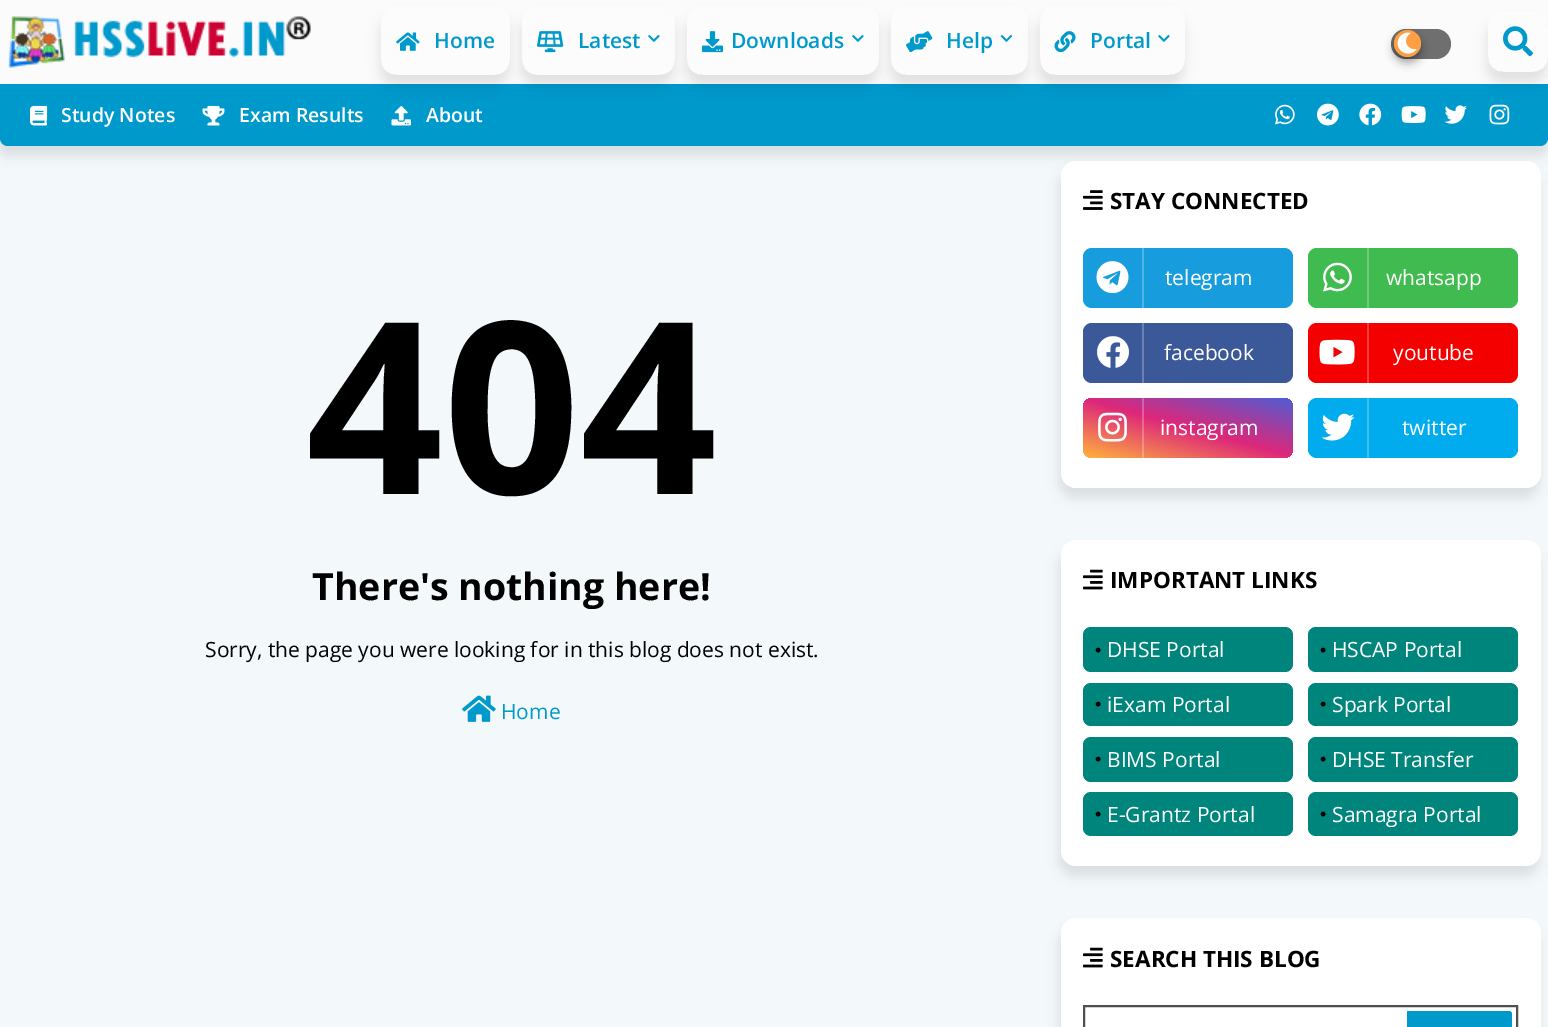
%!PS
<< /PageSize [1548 1027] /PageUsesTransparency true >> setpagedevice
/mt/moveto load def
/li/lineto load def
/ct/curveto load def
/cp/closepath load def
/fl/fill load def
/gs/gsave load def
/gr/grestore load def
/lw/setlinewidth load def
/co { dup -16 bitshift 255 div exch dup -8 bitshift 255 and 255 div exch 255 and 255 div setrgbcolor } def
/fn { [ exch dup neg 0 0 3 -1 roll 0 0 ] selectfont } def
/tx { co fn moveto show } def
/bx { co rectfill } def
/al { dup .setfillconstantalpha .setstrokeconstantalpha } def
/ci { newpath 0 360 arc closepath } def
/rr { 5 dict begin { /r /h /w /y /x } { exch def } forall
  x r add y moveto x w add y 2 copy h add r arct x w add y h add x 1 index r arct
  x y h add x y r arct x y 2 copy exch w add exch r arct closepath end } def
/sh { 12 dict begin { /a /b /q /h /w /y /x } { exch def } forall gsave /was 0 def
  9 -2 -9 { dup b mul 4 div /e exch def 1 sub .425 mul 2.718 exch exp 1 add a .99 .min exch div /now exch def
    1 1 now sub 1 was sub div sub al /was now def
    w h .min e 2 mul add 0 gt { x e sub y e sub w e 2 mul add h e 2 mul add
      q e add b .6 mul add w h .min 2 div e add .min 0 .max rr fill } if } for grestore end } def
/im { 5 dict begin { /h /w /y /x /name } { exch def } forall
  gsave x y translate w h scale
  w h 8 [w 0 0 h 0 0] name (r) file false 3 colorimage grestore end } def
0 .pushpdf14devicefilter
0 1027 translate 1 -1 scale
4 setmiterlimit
0 0 1548 1027 16#F3F8FB bx
16#000000 co
-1 95 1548 61 8 6 .1 sh
0 0 1548 84 16#FBFBFB bx
(media/1.raw) 8 16 303 52 im
16#0099CC co
0 84 mt 1548 84 li 1548 138 li 1548 142.5 1544.5 146 1540 146 ct 8 146 li 3.5 146 0 142.5 0 138 ct cp fl
gs
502 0 mt 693 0 li 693 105 li 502 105 li cp 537 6 mt 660 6 li 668.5 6 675 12.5 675 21 ct 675 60 li 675 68.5 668.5 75 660 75 ct 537 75 li 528.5 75 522 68.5 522 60 ct 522 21 li 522 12.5 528.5 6 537 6 ct cp eoclip newpath
16#000000 co
521 17 153 69 15 6 .1 sh
gr
0.37 al
16#FFFFFF co
522 6 153 69 15 rr fl
gs
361 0 mt 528 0 li 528 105 li 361 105 li cp 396 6 mt 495 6 li 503.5 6 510 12.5 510 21 ct 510 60 li 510 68.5 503.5 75 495 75 ct 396 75 li 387.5 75 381 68.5 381 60 ct 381 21 li 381 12.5 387.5 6 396 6 ct cp eoclip newpath
1 al
16#000000 co
380 17 129 69 15 6 .1 sh
gr
381 6 129 69 15 rr fl
1 al
(media/2.raw) 396 32 24 19 im
(media/3.raw) 537 31 27 22 im
(media/4.raw) 648 35 12 7 im
gs
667 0 mt 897 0 li 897 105 li 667 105 li cp 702 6 mt 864 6 li 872.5 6 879 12.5 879 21 ct 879 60 li 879 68.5 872.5 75 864 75 ct 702 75 li 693.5 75 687 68.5 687 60 ct 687 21 li 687 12.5 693.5 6 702 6 ct cp eoclip newpath
16#000000 co
686 17 192 69 15 6 .1 sh
gr
0.37 al
687 6 192 69 15 rr fl
1 al
(media/5.raw) 702 31 21 22 im
(media/4.raw) 852 35 12 7 im
gs
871 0 mt 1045 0 li 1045 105 li 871 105 li cp 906 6 mt 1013 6 li 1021.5 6 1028 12.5 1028 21 ct 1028 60 li 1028 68.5 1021.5 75 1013 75 ct 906 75 li 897.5 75 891 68.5 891 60 ct 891 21 li 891 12.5 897.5 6 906 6 ct cp eoclip newpath
16#000000 co
890 17 136 69 15 6 .1 sh
gr
0.37 al
891 6 137 69 15 rr fl
1 al
(media/6.raw) 906 31 27 22 im
(media/7.raw) 1000 35 13 7 im
gs
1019 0 mt 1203 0 li 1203 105 li 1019 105 li cp 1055 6 mt 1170 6 li 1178.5 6 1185 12.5 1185 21 ct 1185 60 li 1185 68.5 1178.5 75 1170 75 ct 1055 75 li 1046.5 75 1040 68.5 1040 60 ct 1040 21 li 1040 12.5 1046.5 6 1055 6 ct cp eoclip newpath
16#000000 co
1038 17 146 69 15 6 .1 sh
gr
0.37 al
1040 6 145 69 15 rr fl
1 al
(media/8.raw) 1054 31 22 22 im
(media/4.raw) 1158 35 12 7 im
16#6F6F6F co
1391 29 60 30 15 rr fl
16#000000 co
1394 35 27 27 13.5 4.5 .23 sh
1394 35 27 27 13.5 4.5 .16 sh
16#FF9F43 co
1407.5 43.5 13.5 ci fl
(media/9.raw) 1397 32 20 22 im
gs
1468 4 mt 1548 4 li 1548 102 li 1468 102 li cp 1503 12 mt 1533 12 li 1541.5 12 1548 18.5 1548 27 ct 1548 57 li 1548 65.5 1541.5 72 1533 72 ct 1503 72 li 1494.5 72 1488 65.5 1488 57 ct 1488 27 li 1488 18.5 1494.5 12 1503 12 ct cp eoclip newpath
16#000000 co
1487 23 60 60 15 6 .1 sh
gr
0.37 al
16#FFFFFF co
1488 12 60 60 15 rr fl
1 al
(media/10.raw) 1503 26 30 31 im
(media/11.raw) 30 105 18 21 im
(media/12.raw) 202 105 23 21 im
(media/13.raw) 391 106 20 20 im
(media/14.raw) 1275 104 20 21 im
(media/15.raw) 1317 103 22 23 im
(media/16.raw) 1359 103 23 23 im
(media/17.raw) 1401 106 25 17 im
(media/18.raw) 1444 105 23 19 im
(media/19.raw) 1489 104 21 21 im
(media/20.raw) 462 695 34 27 im
16#000000 co
1059 171 480 327 15 6 .1 sh
16#FFFFFF co
1061 161 480 327 15 rr fl
(media/21.raw) 1083 190 20 20 im
16#179CDE co
1083 248 210 60 9 rr fl
1142 248 2 60 16#4FB4E6 bx
(media/22.raw) 1096 261 33 33 im
16#3FBB50 co
1308 248 210 60 9 rr fl
1367 248 2 60 16#6DCB7A bx
(media/23.raw) 1323 262 29 30 im
16#3B5999 co
1083 323 210 60 9 rr fl
1142 323 2 60 16#6A81B1 bx
(media/24.raw) 1097 336 32 32 im
16#F50000 co
1308 323 210 60 9 rr fl
1367 323 2 60 16#F73D3D bx
(media/25.raw) 1319 339 36 26 im
gs 1083 398 210 60 9 rr clip newpath
<< /ShadingType 2 /ColorSpace /DeviceRGB /Coords [1173 482 1203 373] /Extend [true true] /Function << /FunctionType 3 /Domain [0 1] /Functions [<< /FunctionType 2 /Domain [0 1] /C0 [1 .694 .239] /C1 [.867 .153 .482] /N 1 >> << /FunctionType 2 /Domain [0 1] /C0 [.867 .153 .482] /C1 [.302 .369 .831] /N 1 >>] /Bounds [.5] /Encode [0 1 0 1] >> >> shfill gr
gs 1142 398 mt 1144 398 li 1144 458 li 1142 458 li cp clip newpath
<< /ShadingType 2 /ColorSpace /DeviceRGB /Coords [1173 482 1203 373] /Extend [true true] /Function << /FunctionType 3 /Domain [0 1] /Functions [<< /FunctionType 2 /Domain [0 1] /C0 [1 .769 .424] /C1 [.898 .357 .608] /N 1 >> << /FunctionType 2 /Domain [0 1] /C0 [.898 .357 .608] /C1 [.471 .522 .871] /N 1 >>] /Bounds [.5] /Encode [0 1 0 1] >> >> shfill gr
(media/26.raw) 1098 412 29 30 im
16#00ACEE co
1308 398 210 60 9 rr fl
1367 398 2 60 16#3DC0F2 bx
(media/27.raw) 1321 413 34 28 im
16#000000 co
1059 551 480 325 15 6 .1 sh
16#FFFFFF co
1061 540 480 326 15 rr fl
(media/28.raw) 1083 569 20 21 im
16#00857C co
1083 627 210 45 8 rr fl
1308 627 210 45 8 rr fl
1083 683 210 43 8 rr fl
1308 683 210 43 8 rr fl
1083 737 210 45 8 rr fl
1308 737 210 45 8 rr fl
1083 792 210 44 8 rr fl
1308 792 210 44 8 rr fl
16#000000 co
1059 929 480 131 15 6 .1 sh
16#FFFFFF co
1061 918 480 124 15 rr fl
(media/28.raw) 1083 947 20 21 im
16#505050 co
2 lw
1084 1006 433 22 rectstroke
16#0099CC co
1407 1011 mt 1509 1011 li 1510.5 1011 1512 1012.5 1512 1014 ct 1512 1027 li 1512 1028.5 1510.5 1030 1509 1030 ct 1407 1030 li cp fl
(Home) 434 48 /OpenSans-SemiBold 21 16#0099CC tx
(Latest) 578 48 /OpenSans-SemiBold 21 16#0099CC tx
(Downloads) 731 48 /OpenSans-SemiBold 21 16#0099CC tx
(Help) 946 48 /OpenSans-SemiBold 21 16#0099CC tx
(Portal) 1090 48 /OpenSans-SemiBold 21 16#0099CC tx
(Study Notes) 61 122 /OpenSans-SemiBold 19.5 16#FFFFFF tx
(Exam Results) 239 122 /OpenSans-SemiBold 19.5 16#FFFFFF tx
(About) 426 122 /OpenSans-SemiBold 19.5 16#FFFFFF tx
(404) 306 494 /OpenSans-Bold 240 16#000000 tx
(There's nothing here!) 312 600 /OpenSans-Bold 37.5 16#000000 tx
(Sorry, the page you were looking for in this blog does not exist.) 205 657 /OpenSans-Regular 21 16#000000 tx
(Home) 501 719 /OpenSans-Regular 21 16#0099CC tx
(STAY CONNECTED) 1110 209 /OpenSans-Bold 22.5 16#000000 tx
(telegram) 1165 285 /OpenSans-Regular 21 16#FFFFFF tx
(whatsapp) 1386 285 /OpenSans-Regular 21 16#FFFFFF tx
(facebook) 1164 360 /OpenSans-Regular 21 16#FFFFFF tx
(youtube) 1393 360 /OpenSans-Regular 21 16#FFFFFF tx
(instagram) 1160 435 /OpenSans-Regular 21 16#FFFFFF tx
(twitter) 1402 435 /OpenSans-Regular 21 16#FFFFFF tx
(IMPORTANT LINKS) 1110 588 /OpenSans-Bold 22.5 16#000000 tx
(•) 1095 656 /LiberationSerif-Bold 18 16#000000 tx
(DHSE Portal) 1107 657 /OpenSans-Regular 21 16#FFFFFF tx
(•) 1320 656 /LiberationSerif-Bold 18 16#000000 tx
(HSCAP Portal) 1332 657 /OpenSans-Regular 21 16#FFFFFF tx
(•) 1095 710 /LiberationSerif-Bold 18 16#000000 tx
(iExam Portal) 1107 712 /OpenSans-Regular 21 16#FFFFFF tx
(•) 1320 710 /LiberationSerif-Bold 18 16#000000 tx
(Spark Portal) 1332 712 /OpenSans-Regular 21 16#FFFFFF tx
(•) 1095 765 /LiberationSerif-Bold 18 16#000000 tx
(BIMS Portal) 1107 767 /OpenSans-Regular 21 16#FFFFFF tx
(•) 1320 765 /LiberationSerif-Bold 18 16#000000 tx
(DHSE Transfer) 1332 767 /OpenSans-Regular 21 16#FFFFFF tx
(•) 1095 820 /LiberationSerif-Bold 18 16#000000 tx
(E-Grantz Portal) 1107 822 /OpenSans-Regular 21 16#FFFFFF tx
(•) 1320 820 /LiberationSerif-Bold 18 16#000000 tx
(Samagra Portal) 1332 822 /OpenSans-Regular 21 16#FFFFFF tx
(SEARCH THIS BLOG) 1110 967 /OpenSans-Bold 22.5 16#000000 tx
.poppdf14devicefilter showpage
